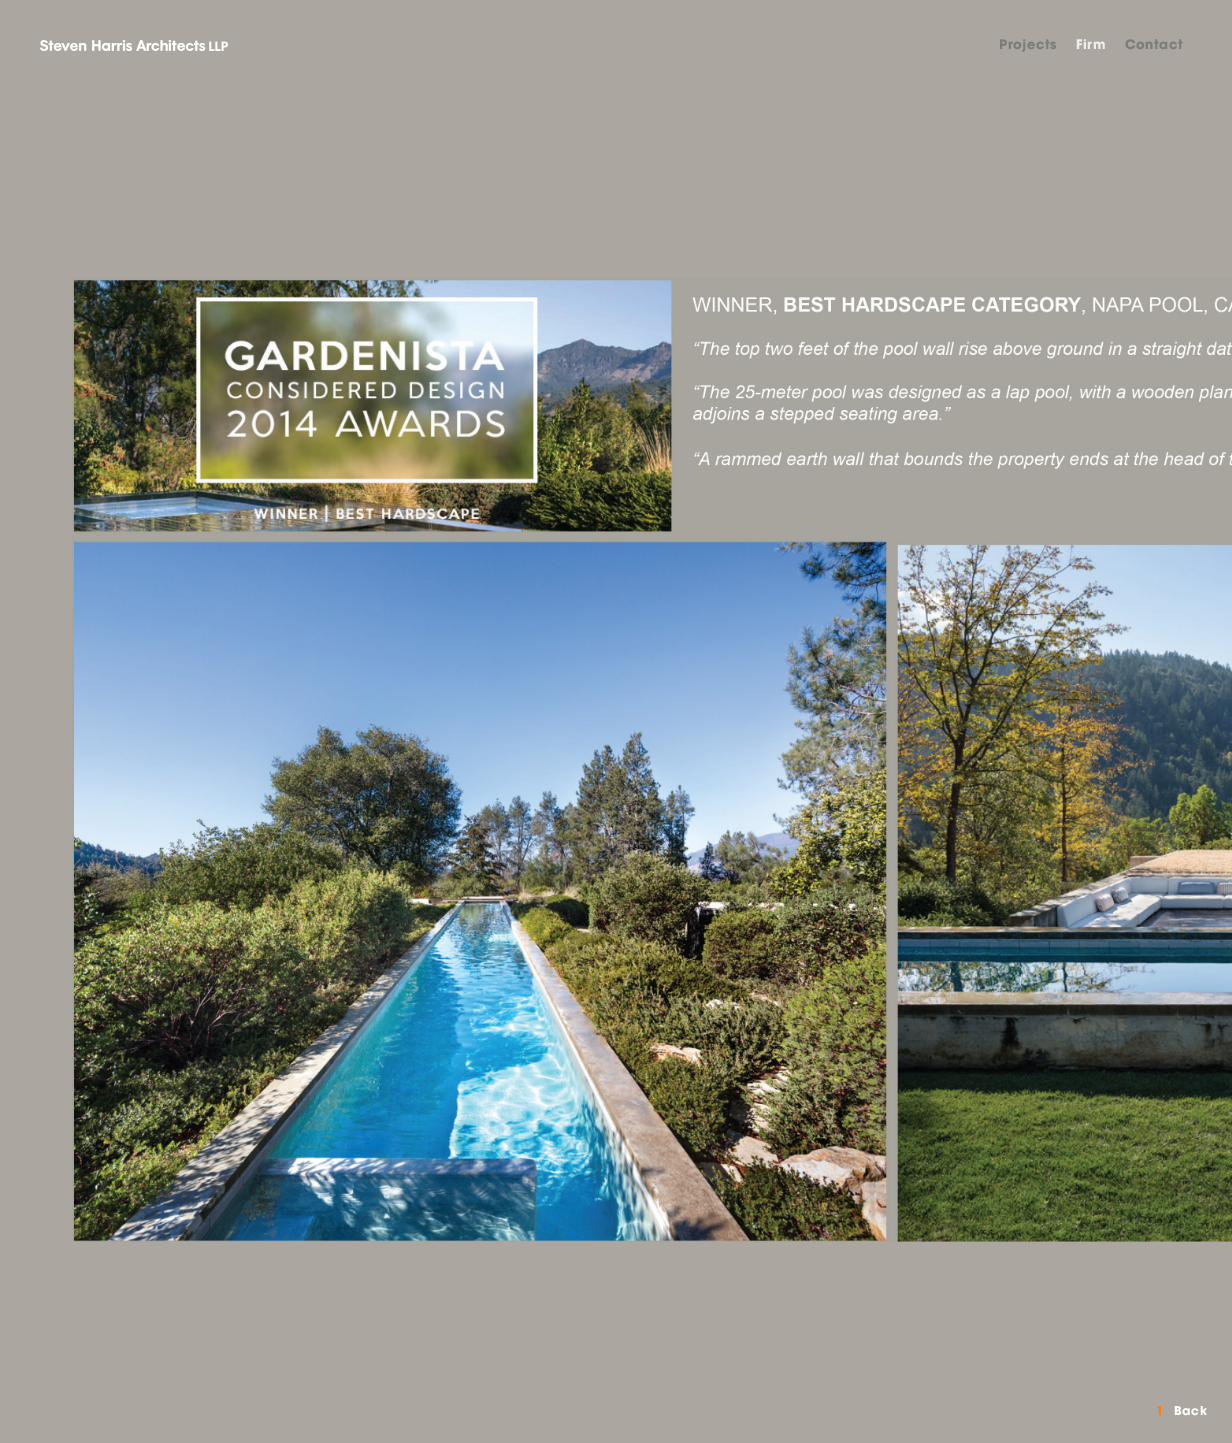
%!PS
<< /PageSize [1232 1443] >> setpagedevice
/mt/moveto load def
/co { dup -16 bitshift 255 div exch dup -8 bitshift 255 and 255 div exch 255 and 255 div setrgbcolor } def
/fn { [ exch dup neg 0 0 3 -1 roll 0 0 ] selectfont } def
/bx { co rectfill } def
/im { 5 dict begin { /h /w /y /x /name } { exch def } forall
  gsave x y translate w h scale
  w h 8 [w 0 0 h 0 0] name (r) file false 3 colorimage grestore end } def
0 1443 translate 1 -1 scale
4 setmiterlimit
0 0 1232 1443 16#ABA6A0 bx
(media/1.raw) 40 40 188 11 im
(media/2.raw) 72 278 1160 964 im
/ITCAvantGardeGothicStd-Bold 13 fn
16#7D7C7C co
999 49 mt .5 0 (Projects) ashow
16#EFEDED co
1076 49 mt .5 0 (Firm) ashow
16#7D7C7C co
1125 49 mt .5 0 (Contact) ashow
/ITCAvantGardeGothicStd-Bold 12 fn
16#FB7E17 co
1156 1415 mt .5 0 (1) ashow
16#FFFFFF co
1174 1415 mt .5 0 (Back) ashow
showpage
